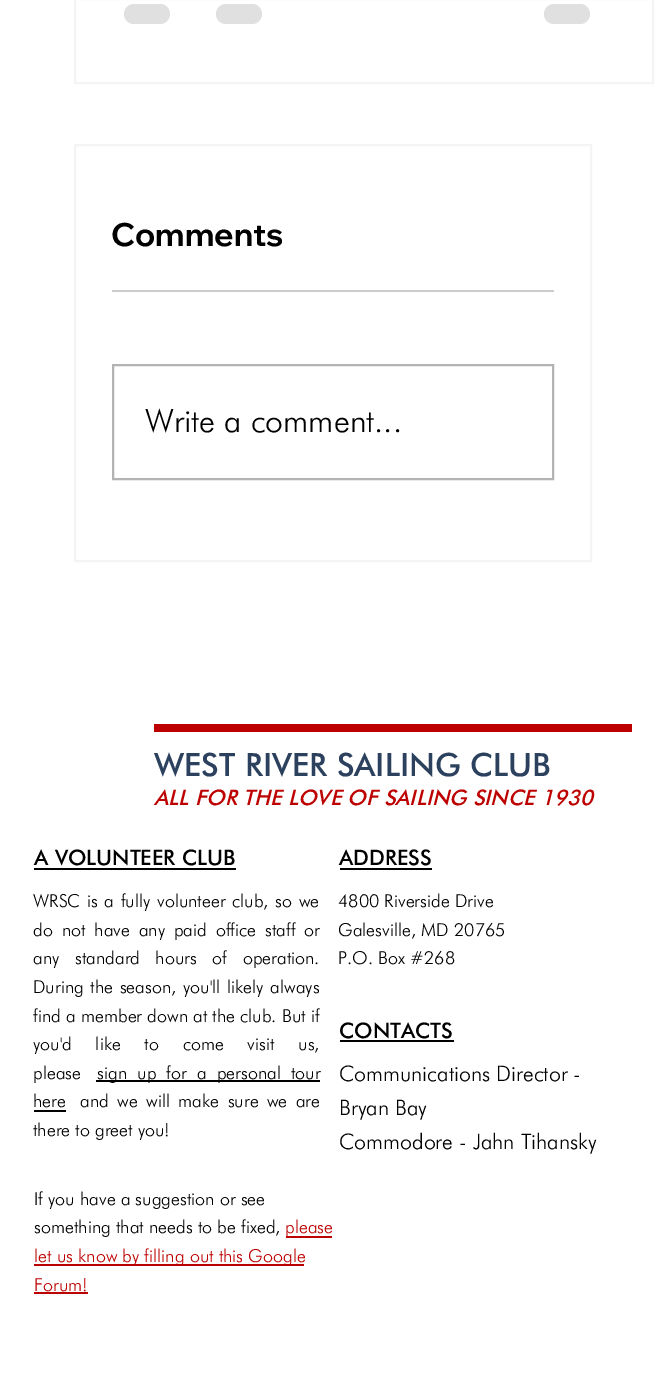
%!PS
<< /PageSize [665 1374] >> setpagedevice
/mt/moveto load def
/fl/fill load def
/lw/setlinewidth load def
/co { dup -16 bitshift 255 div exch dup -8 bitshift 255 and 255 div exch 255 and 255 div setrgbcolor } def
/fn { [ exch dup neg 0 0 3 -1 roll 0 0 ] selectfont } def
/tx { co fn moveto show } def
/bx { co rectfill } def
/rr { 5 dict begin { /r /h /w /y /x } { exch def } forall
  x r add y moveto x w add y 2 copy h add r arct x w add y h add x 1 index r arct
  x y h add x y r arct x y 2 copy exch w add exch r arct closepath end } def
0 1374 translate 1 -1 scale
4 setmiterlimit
0 0 665 1374 16#FFFFFF bx
16#F4F4F4 co
2 lw
75 -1 578 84 rectstroke
16#E0E0E0 co
124 4 46 20 10 rr fl
216 4 46 20 10 rr fl
544 4 46 20 10 rr fl
16#F4F4F4 co
75 145 516 416 rectstroke
112 290 442 2 16#CCCCCC bx
16#B3B3B3 co
113 365 440 114 rectstroke
154 724 478 8 16#BD0000 bx
34 868 202 2 16#000000 bx
340 868 92 2 16#000000 bx
96 1080 224 2 16#000000 bx
34 1110 32 2 16#000000 bx
340 1040 114 2 16#000000 bx
286 1236 46 2 16#BD0000 bx
34 1264 270 2 16#BD0000 bx
34 1292 54 2 16#BD0000 bx
(Comments) 111 246 /WixMadeforDisplay-Bold 32 16#000000 tx
(Write a comment...) 145 432 /Futura-Light 32 16#000000 tx
(WEST RIVER SAILING CLUB) 154 776 /Futura-Medium 32.1 16#2B415D tx
(ALL FOR THE LOVE OF SAILING SINCE 1930) 154 805 /Futura-MediumItalic 21.4 16#BD0000 tx
(A VOLUNTEER CLUB) 34 865 /Futura-Medium 21.4 16#000000 tx
(ADDRESS) 339 865 /Futura-Medium 21.4 16#000000 tx
/Futura-Light 17.9 fn
33 907 mt 1.5 0 32 (WRSC is a fully volunteer club, so we) widthshow
33 936 mt 3.75 0 32 (do not have any paid office staff or) widthshow
33 964 mt 10.5 0 32 (any standard hours of operation.) widthshow
33 993 mt 1.5 0 32 (During the season, you'll likely always) widthshow
(find a member down at the club. But if) 33 1022 /Futura-Light 17.9 16#000000 tx
33 1050 mt 18.5 0 32 (you'd like to come visit us,) widthshow
(please) 33 1079 /Futura-Light 17.9 16#000000 tx
97 1079 mt 5 0 32 (sign up for a personal tour) widthshow
(here) 33 1107 /Futura-Light 17.9 16#000000 tx
80 1107 mt 3.25 0 32 (and we will make sure we are) widthshow
(there to greet you!) 33 1136 /Futura-Light 17.9 16#000000 tx
(4800 Riverside Drive) 338 907 /Futura-Light 17.9 16#000000 tx
(Galesville, MD 20765) 338 936 /Futura-Light 17.9 16#000000 tx
(P.O. Box #268) 338 964 /Futura-Light 17.9 16#000000 tx
(CONTACTS) 339 1038 /Futura-Medium 21.4 16#000000 tx
(Communications Director -) 339 1081 /Futura-Light 21.4 16#000000 tx
(Bryan Bay) 339 1115 /Futura-Light 21.4 16#000000 tx
(Commodore - Jahn Tihansky) 339 1149 /Futura-Light 21.4 16#000000 tx
(If you have a suggestion or see) 34 1205 /Futura-Light 17.9 16#000000 tx
(something that needs to be fixed,) 34 1233 /Futura-Light 17.9 16#000000 tx
(please) 285 1233 /Futura-Light 17.9 16#BD0000 tx
(let us know by filling out this Google) 34 1262 /Futura-Light 17.9 16#BD0000 tx
(Forum!) 34 1291 /Futura-Light 17.9 16#BD0000 tx
showpage
